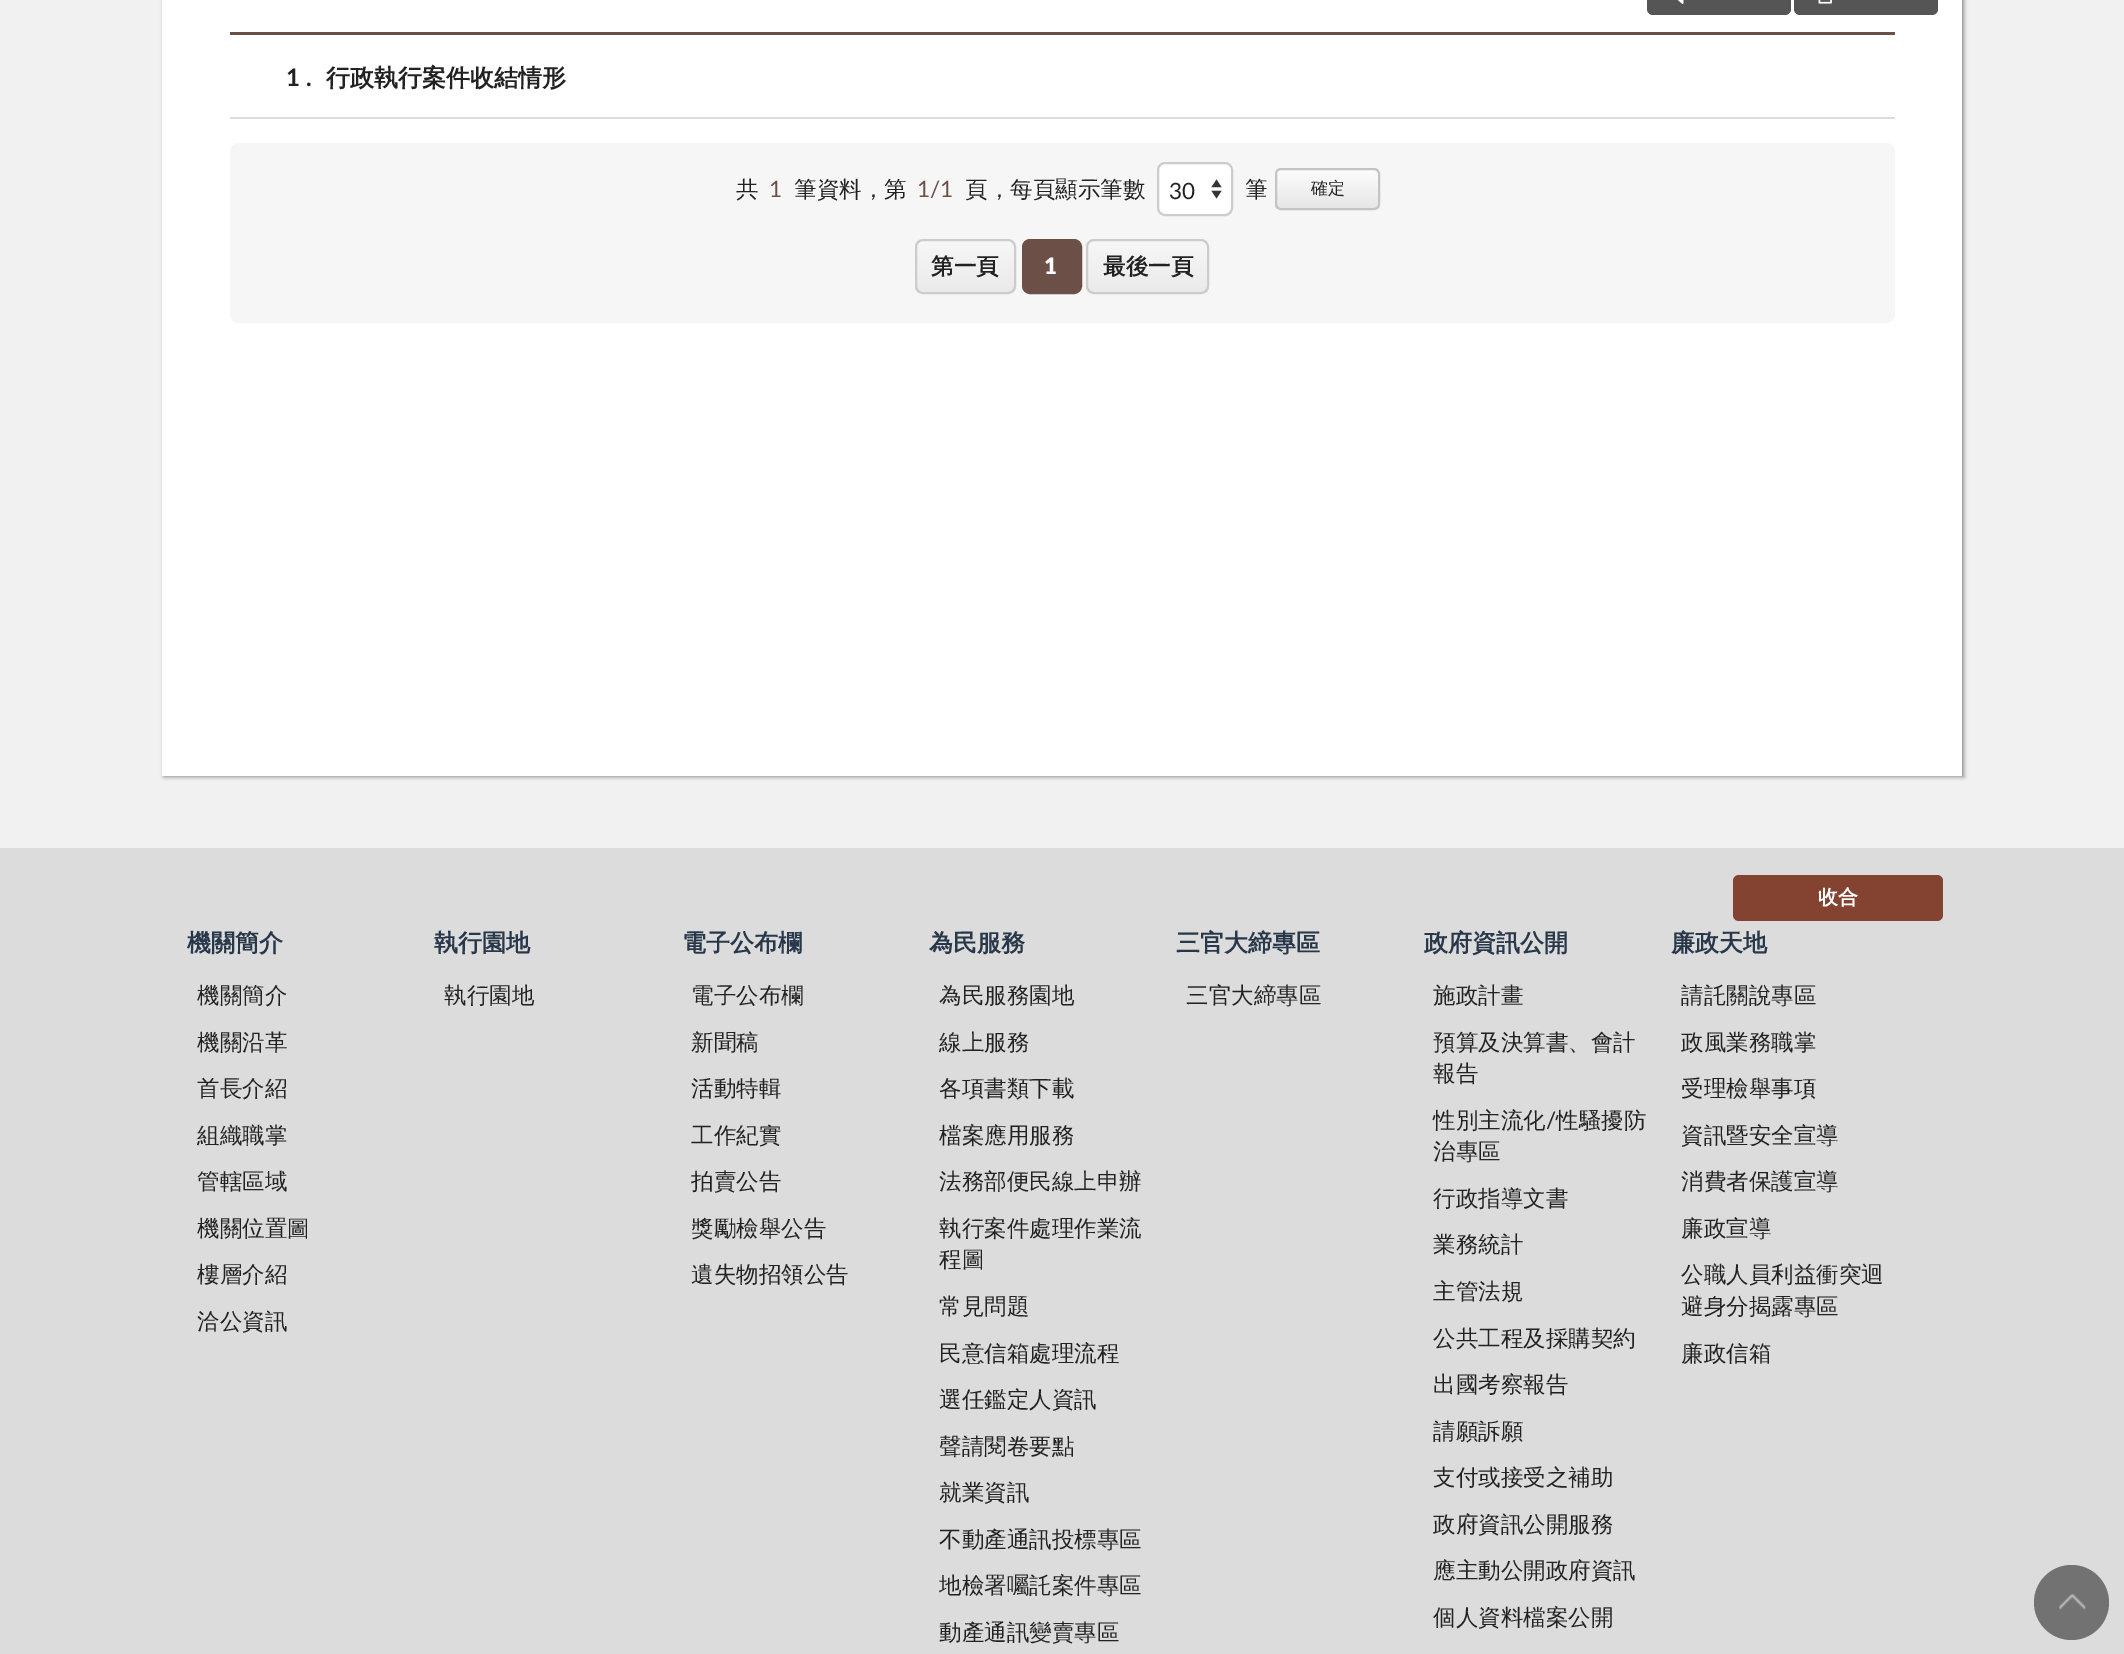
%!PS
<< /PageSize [2124 1654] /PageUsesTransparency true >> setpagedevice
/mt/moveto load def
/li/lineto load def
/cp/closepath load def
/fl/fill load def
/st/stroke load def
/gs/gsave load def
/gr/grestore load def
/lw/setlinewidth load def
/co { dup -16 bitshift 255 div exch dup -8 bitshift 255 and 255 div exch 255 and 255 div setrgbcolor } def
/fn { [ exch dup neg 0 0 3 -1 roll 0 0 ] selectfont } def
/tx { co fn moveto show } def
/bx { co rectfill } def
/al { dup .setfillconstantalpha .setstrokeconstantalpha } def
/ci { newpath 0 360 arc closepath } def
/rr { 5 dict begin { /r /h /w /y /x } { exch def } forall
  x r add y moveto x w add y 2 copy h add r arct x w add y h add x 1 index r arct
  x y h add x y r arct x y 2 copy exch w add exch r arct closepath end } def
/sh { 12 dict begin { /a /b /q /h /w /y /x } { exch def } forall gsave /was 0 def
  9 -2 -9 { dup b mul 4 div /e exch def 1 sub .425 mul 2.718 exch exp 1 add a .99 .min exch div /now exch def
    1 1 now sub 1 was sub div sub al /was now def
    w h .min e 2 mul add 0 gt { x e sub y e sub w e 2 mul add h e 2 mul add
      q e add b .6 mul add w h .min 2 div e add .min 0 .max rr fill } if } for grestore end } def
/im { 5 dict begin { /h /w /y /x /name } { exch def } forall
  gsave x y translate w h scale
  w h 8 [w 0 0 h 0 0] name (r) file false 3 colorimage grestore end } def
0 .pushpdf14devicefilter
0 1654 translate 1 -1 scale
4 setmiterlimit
0 0 2124 1654 16#F1F1F1 bx
16#000000 co
164 -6 1800 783 0 2 .4 sh
162 0 1800 776 16#FFFFFF bx
16#555555 co
1647 -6 144 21 6 rr fl
(media/1.raw) 1677 0 7 4 im
1794 -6 144 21 6 rr fl
(media/2.raw) 1818 0 14 4 im
230 32 1665 3 16#6C5048 bx
230 117 1665 2 16#DDDDDD bx
16#F6F6F6 co
230 143 1665 180 9 rr fl
16#FFFFFF co
1157 162 76 54 8 rr fl
(media/3.raw) 1211 179 11 20 im
16#CCCCCC co
2 lw
1158 163 74 52 7 rr st
gs
1275 168 105 42 6 rr clip newpath
gs 1275 170 mt 1380 170 li 1380 209 li 1275 209 li cp clip newpath
<< /ShadingType 2 /ColorSpace /DeviceRGB /Coords [1328 170 1328 209] /Extend [true true] /Function << /FunctionType 2 /Domain [0 1] /C0 [.988 .988 .988] /C1 [.902 .902 .902] /N 1 >> >> shfill gr
gr
16#C4C4C4 co
1276 169 103 40 5 rr st
gs
915 239 101 55 8 rr clip newpath
gs 915 240 mt 1016 240 li 1016 293 li 915 293 li cp clip newpath
<< /ShadingType 2 /ColorSpace /DeviceRGB /Coords [965 240 965 293] /Extend [true true] /Function << /FunctionType 2 /Domain [0 1] /C0 [.969 .969 .969] /C1 [.918 .918 .918] /N 1 >> >> shfill gr
gr
16#CCCCCC co
916 240 99 53 7 rr st
16#6C5048 co
1023 240 58 53 7 rr gs fl gr
st
gs
1086 239 123 55 8 rr clip newpath
gs 1086 240 mt 1209 240 li 1209 293 li 1086 293 li cp clip newpath
<< /ShadingType 2 /ColorSpace /DeviceRGB /Coords [1148 240 1148 293] /Extend [true true] /Function << /FunctionType 2 /Domain [0 1] /C0 [.969 .969 .969] /C1 [.918 .918 .918] /N 1 >> >> shfill gr
gr
16#CCCCCC co
1087 240 121 53 7 rr st
0 848 2124 806 16#DCDCDC bx
16#844331 co
1733 875 210 46 6 rr fl
16#727272 co
2071.5 1602.5 37.5 ci fl
(media/4.raw) 2059 1593 27 17 im
(1 .) 286 86 /Lato-Bold 24 16#222222 tx
(行政執行案件收結情形) 326 86 /WenQuanYiZenHei-Bold 24 16#222222 tx
(共) 736 197 /WenQuanYiZenHei-Medium 22.5 16#222222 tx
(1) 769 197 /Lato-Regular 22.5 16#6C5048 tx
(筆資料，第) 794 197 /WenQuanYiZenHei-Medium 22.5 16#222222 tx
(1/1) 917 197 /Lato-Regular 22.5 16#6C5048 tx
(頁，每頁顯示筆數) 965 197 /WenQuanYiZenHei-Medium 22.5 16#222222 tx
(30) 1169 199 /Lato-Regular 22.5 16#222222 tx
(筆) 1245 197 /WenQuanYiZenHei-Medium 22.5 16#222222 tx
(確定) 1311 194 /WenQuanYiZenHei-Medium 17 16#222222 tx
(第一頁) 931 274 /WenQuanYiZenHei-Bold 22.5 16#222222 tx
(1) 1044 274 /Lato-ExtraBold 22.5 16#FFFFFF tx
(最後一頁) 1103 274 /WenQuanYiZenHei-Bold 22.5 16#222222 tx
(收合) 1818 904 /WenQuanYiZenHei-Bold 20 16#FFFFFF tx
(機關簡介) 187 951 /WenQuanYiZenHei-Bold 24 16#28374A tx
(機關簡介) 197 1003 /WenQuanYiZenHei-Medium 22.5 16#222222 tx
(機關沿革) 197 1050 /WenQuanYiZenHei-Medium 22.5 16#222222 tx
(首長介紹) 197 1096 /WenQuanYiZenHei-Medium 22.5 16#222222 tx
(組織職掌) 197 1143 /WenQuanYiZenHei-Medium 22.5 16#222222 tx
(管轄區域) 197 1189 /WenQuanYiZenHei-Medium 22.5 16#222222 tx
(機關位置圖) 197 1236 /WenQuanYiZenHei-Medium 22.5 16#222222 tx
(樓層介紹) 197 1282 /WenQuanYiZenHei-Medium 22.5 16#222222 tx
(洽公資訊) 197 1329 /WenQuanYiZenHei-Medium 22.5 16#222222 tx
(執行園地) 434 951 /WenQuanYiZenHei-Bold 24 16#28374A tx
(執行園地) 444 1003 /WenQuanYiZenHei-Medium 22.5 16#222222 tx
(電子公布欄) 682 951 /WenQuanYiZenHei-Bold 24 16#28374A tx
(電子公布欄) 691 1003 /WenQuanYiZenHei-Medium 22.5 16#222222 tx
(新聞稿) 691 1050 /WenQuanYiZenHei-Medium 22.5 16#222222 tx
(活動特輯) 691 1096 /WenQuanYiZenHei-Medium 22.5 16#222222 tx
(工作紀實) 691 1143 /WenQuanYiZenHei-Medium 22.5 16#222222 tx
(拍賣公告) 691 1189 /WenQuanYiZenHei-Medium 22.5 16#222222 tx
(獎勵檢舉公告) 691 1236 /WenQuanYiZenHei-Medium 22.5 16#222222 tx
(遺失物招領公告) 691 1282 /WenQuanYiZenHei-Medium 22.5 16#222222 tx
(為民服務) 929 951 /WenQuanYiZenHei-Bold 24 16#28374A tx
(為民服務園地) 939 1003 /WenQuanYiZenHei-Medium 22.5 16#222222 tx
(線上服務) 939 1050 /WenQuanYiZenHei-Medium 22.5 16#222222 tx
(各項書類下載) 939 1096 /WenQuanYiZenHei-Medium 22.5 16#222222 tx
(檔案應用服務) 939 1143 /WenQuanYiZenHei-Medium 22.5 16#222222 tx
(法務部便民線上申辦) 939 1189 /WenQuanYiZenHei-Medium 22.5 16#222222 tx
(執行案件處理作業流) 939 1236 /WenQuanYiZenHei-Medium 22.5 16#222222 tx
(程圖) 939 1267 /WenQuanYiZenHei-Medium 22.5 16#222222 tx
(常見問題) 939 1314 /WenQuanYiZenHei-Medium 22.5 16#222222 tx
(民意信箱處理流程) 939 1361 /WenQuanYiZenHei-Medium 22.5 16#222222 tx
(選任鑑定人資訊) 939 1407 /WenQuanYiZenHei-Medium 22.5 16#222222 tx
(聲請閱卷要點) 939 1454 /WenQuanYiZenHei-Medium 22.5 16#222222 tx
(就業資訊) 939 1500 /WenQuanYiZenHei-Medium 22.5 16#222222 tx
(不動產通訊投標專區) 939 1547 /WenQuanYiZenHei-Medium 22.5 16#222222 tx
(地檢署囑託案件專區) 939 1593 /WenQuanYiZenHei-Medium 22.5 16#222222 tx
(動產通訊變賣專區) 939 1640 /WenQuanYiZenHei-Medium 22.5 16#222222 tx
(三官大締專區) 1176 951 /WenQuanYiZenHei-Bold 24 16#28374A tx
(三官大締專區) 1186 1003 /WenQuanYiZenHei-Medium 22.5 16#222222 tx
(政府資訊公開) 1424 951 /WenQuanYiZenHei-Bold 24 16#28374A tx
(施政計畫) 1433 1003 /WenQuanYiZenHei-Medium 22.5 16#222222 tx
(預算及決算書、會計) 1433 1050 /WenQuanYiZenHei-Medium 22.5 16#222222 tx
(報告) 1433 1081 /WenQuanYiZenHei-Medium 22.5 16#222222 tx
(性別主流化) 1433 1128 /WenQuanYiZenHei-Medium 22.5 16#222222 tx
(/) 1546 1128 /Lato-Regular 22.5 16#222222 tx
(性騷擾防) 1556 1128 /WenQuanYiZenHei-Medium 22.5 16#222222 tx
(治專區) 1433 1159 /WenQuanYiZenHei-Medium 22.5 16#222222 tx
(行政指導文書) 1433 1206 /WenQuanYiZenHei-Medium 22.5 16#222222 tx
(業務統計) 1433 1252 /WenQuanYiZenHei-Medium 22.5 16#222222 tx
(主管法規) 1433 1299 /WenQuanYiZenHei-Medium 22.5 16#222222 tx
(公共工程及採購契約) 1433 1346 /WenQuanYiZenHei-Medium 22.5 16#222222 tx
(出國考察報告) 1433 1392 /WenQuanYiZenHei-Medium 22.5 16#222222 tx
(請願訴願) 1433 1439 /WenQuanYiZenHei-Medium 22.5 16#222222 tx
(支付或接受之補助) 1433 1485 /WenQuanYiZenHei-Medium 22.5 16#222222 tx
(政府資訊公開服務) 1433 1532 /WenQuanYiZenHei-Medium 22.5 16#222222 tx
(應主動公開政府資訊) 1433 1578 /WenQuanYiZenHei-Medium 22.5 16#222222 tx
(個人資料檔案公開) 1433 1625 /WenQuanYiZenHei-Medium 22.5 16#222222 tx
(廉政天地) 1671 951 /WenQuanYiZenHei-Bold 24 16#28374A tx
(請託關說專區) 1681 1003 /WenQuanYiZenHei-Medium 22.5 16#222222 tx
(政風業務職掌) 1681 1050 /WenQuanYiZenHei-Medium 22.5 16#222222 tx
(受理檢舉事項) 1681 1096 /WenQuanYiZenHei-Medium 22.5 16#222222 tx
(資訊暨安全宣導) 1681 1143 /WenQuanYiZenHei-Medium 22.5 16#222222 tx
(消費者保護宣導) 1681 1189 /WenQuanYiZenHei-Medium 22.5 16#222222 tx
(廉政宣導) 1681 1236 /WenQuanYiZenHei-Medium 22.5 16#222222 tx
(公職人員利益衝突迴) 1681 1282 /WenQuanYiZenHei-Medium 22.5 16#222222 tx
(避身分揭露專區) 1681 1314 /WenQuanYiZenHei-Medium 22.5 16#222222 tx
(廉政信箱) 1681 1361 /WenQuanYiZenHei-Medium 22.5 16#222222 tx
.poppdf14devicefilter showpage
